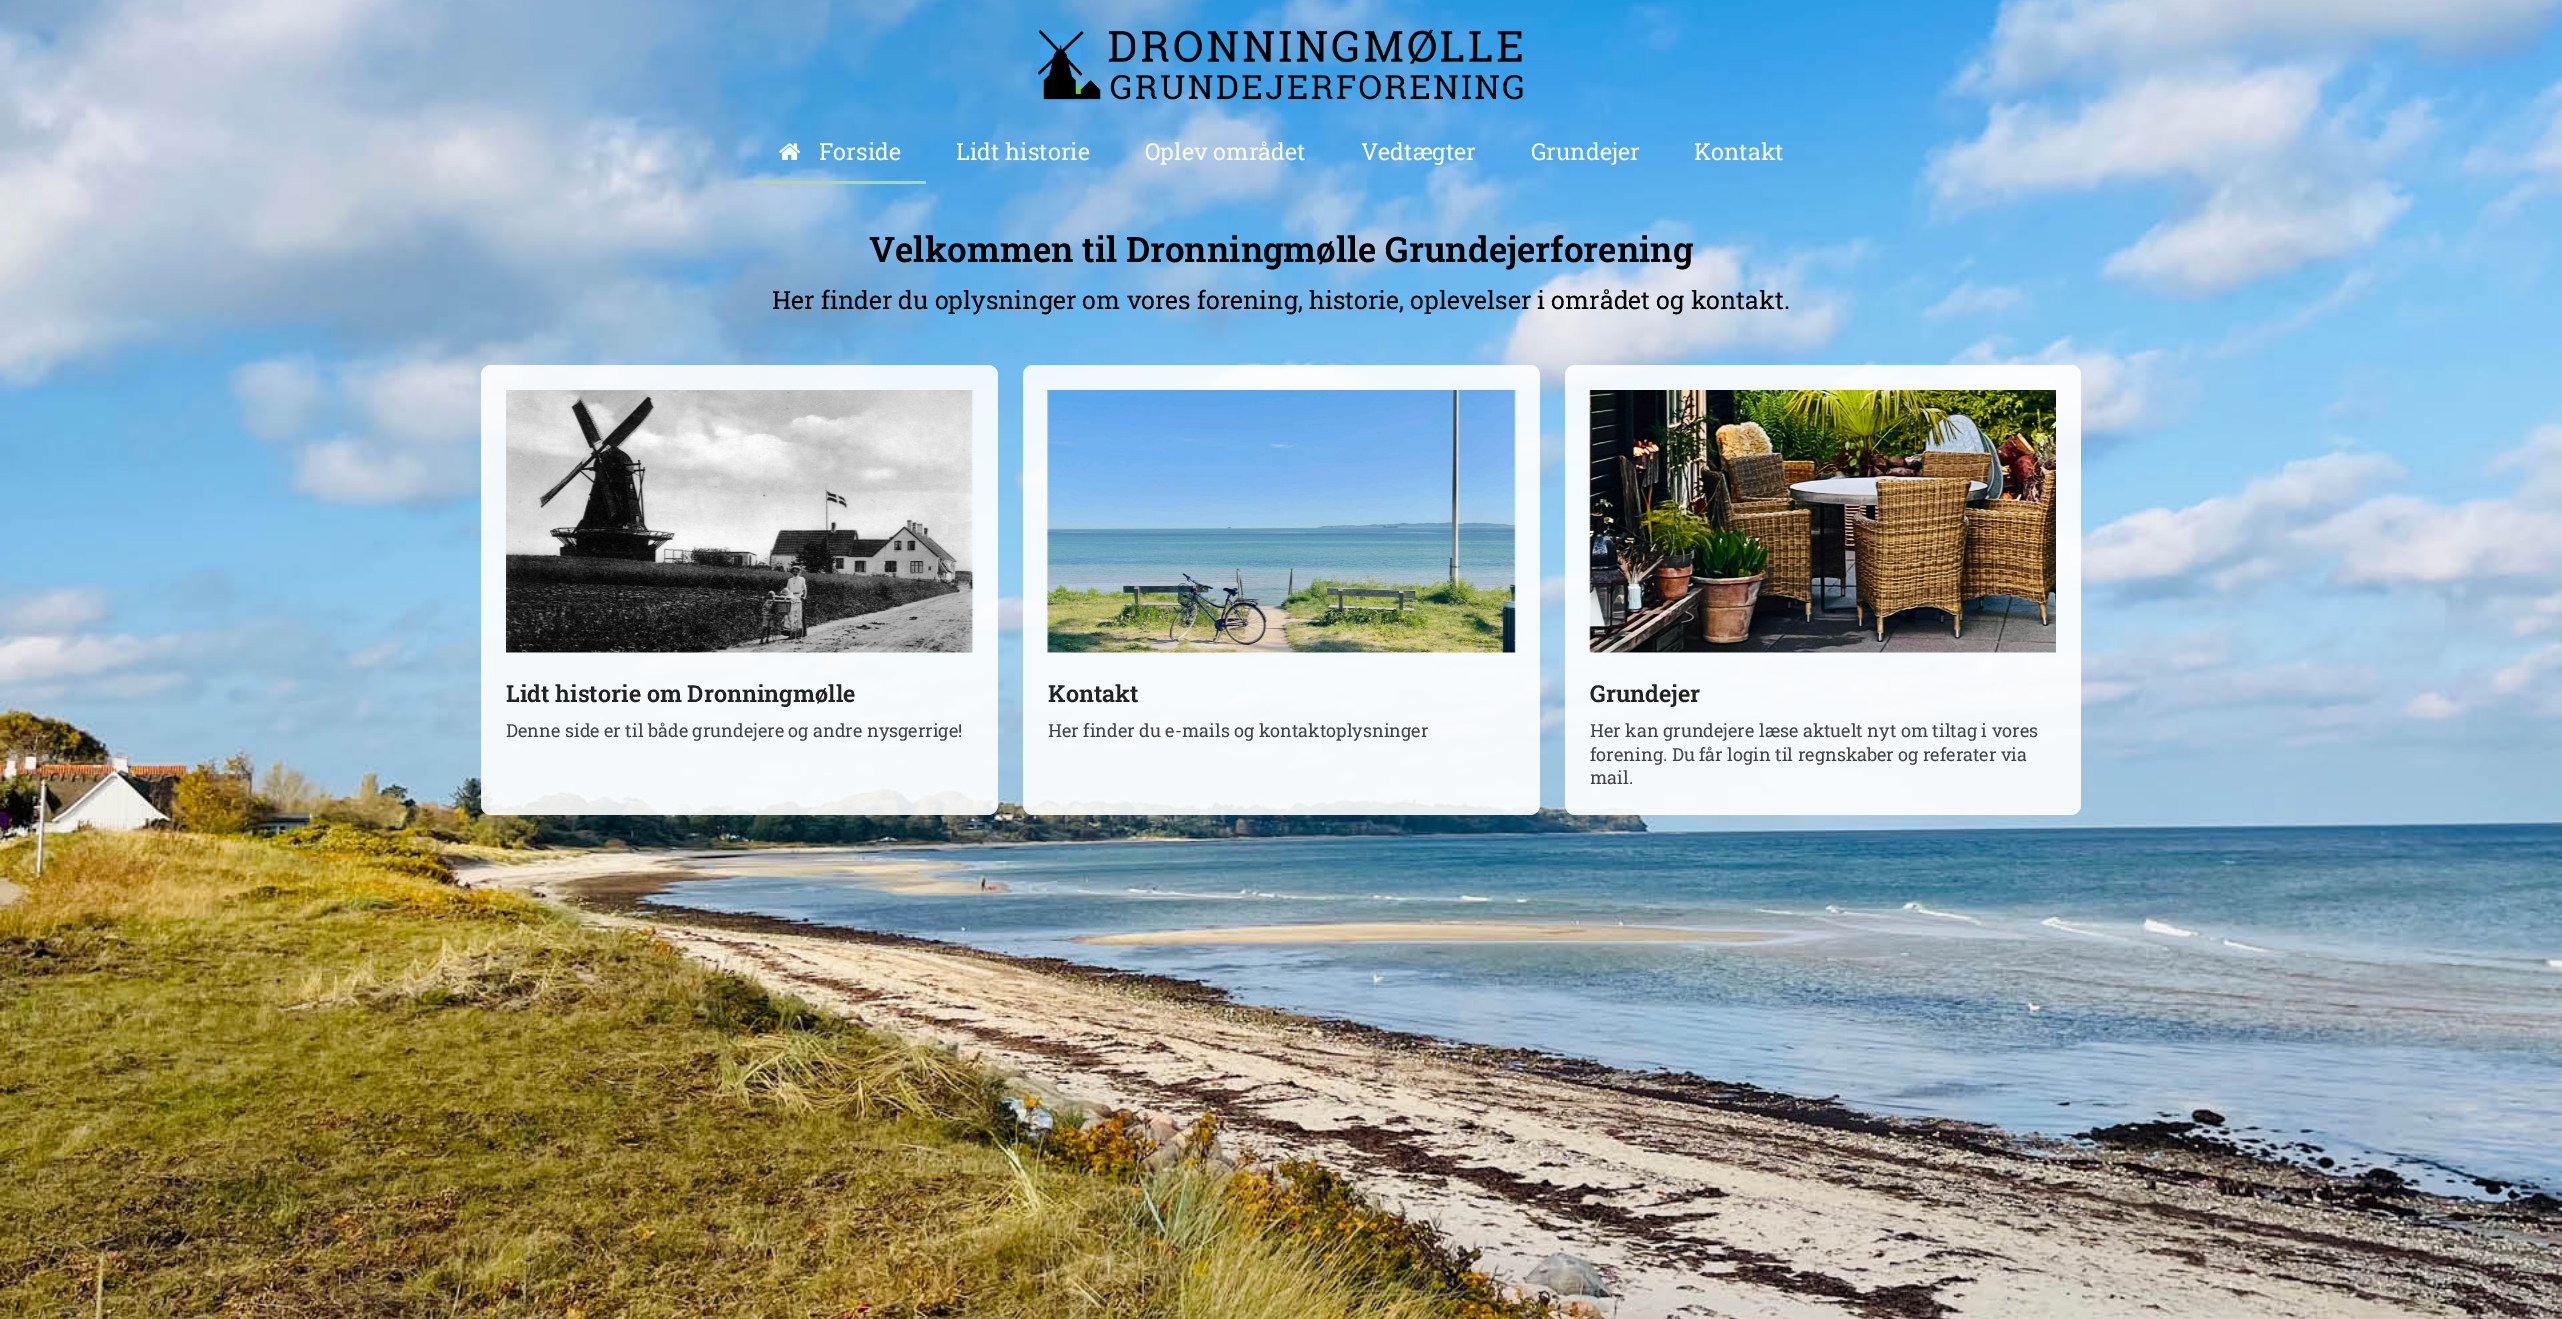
%!PS
<< /PageSize [2562 1319] /PageUsesTransparency true >> setpagedevice
/fl/fill load def
/co { dup -16 bitshift 255 div exch dup -8 bitshift 255 and 255 div exch 255 and 255 div setrgbcolor } def
/fn { [ exch dup neg 0 0 3 -1 roll 0 0 ] selectfont } def
/tx { co fn moveto show } def
/bx { co rectfill } def
/al { dup .setfillconstantalpha .setstrokeconstantalpha } def
/rr { 5 dict begin { /r /h /w /y /x } { exch def } forall
  x r add y moveto x w add y 2 copy h add r arct x w add y h add x 1 index r arct
  x y h add x y r arct x y 2 copy exch w add exch r arct closepath end } def
/im { 5 dict begin { /h /w /y /x /name } { exch def } forall
  gsave x y translate w h scale
  w h 8 [w 0 0 h 0 0] name (r) file false 3 colorimage grestore end } def
0 .pushpdf14devicefilter
0 1319 translate 1 -1 scale
4 setmiterlimit
0 0 2562 1319 16#FFFFFF bx
(media/3.raw) 0 0 2562 1319 im
(media/1.raw) 1038 29 485 73 im
(media/2.raw) 779 143 22 17 im
754 181 172 3 16#B2D896 bx
0.9 al
16#FFFFFF co
481 365 517 450 10 rr fl
1 al
(media/4.raw) 506 390 468 263 im
0.9 al
1023 365 517 450 10 rr fl
1 al
(media/5.raw) 1047 390 469 263 im
0.9 al
1565 365 516 450 10 rr fl
1 al
(media/6.raw) 1589 390 467 263 im
(Forside) 819 160 /RobotoSlab-Regular 23.4 16#FFFFFF tx
(Lidt historie) 956 160 /RobotoSlab-Regular 23.4 16#FFFFFF tx
(Oplev området) 1145 160 /RobotoSlab-Regular 23.4 16#FFFFFF tx
(Vedtægter) 1361 160 /RobotoSlab-Regular 23.4 16#FFFFFF tx
(Grundejer) 1531 160 /RobotoSlab-Regular 23.4 16#FFFFFF tx
(Kontakt) 1694 160 /RobotoSlab-Regular 23.4 16#FFFFFF tx
(Velkommen til Dronningmølle Grundejerforening) 869 262 /RobotoSlab-SemiBold 35 16#000000 tx
(Her finder du oplysninger om vores forening, historie, oplevelser i området og kontakt.) 772 309 /RobotoSlab-Regular 25 16#000000 tx
(Lidt historie om Dronningmølle) 506 702 /RobotoSlab-SemiBold 23.4 16#222222 tx
(Denne side er til både grundejere og andre nysgerrige!) 506 737 /RobotoSlab-Regular 18.05 16#424242 tx
(Kontakt) 1048 702 /RobotoSlab-SemiBold 23.4 16#222222 tx
(Her finder du e-mails og kontaktoplysninger) 1048 737 /RobotoSlab-Regular 18.05 16#424242 tx
(Grundejer) 1590 702 /RobotoSlab-SemiBold 23.4 16#222222 tx
(Her kan grundejere læse aktuelt nyt om tiltag i vores) 1590 737 /RobotoSlab-Regular 18.05 16#424242 tx
(forening. Du får login til regnskaber og referater via) 1590 761 /RobotoSlab-Regular 18.05 16#424242 tx
(mail.) 1590 784 /RobotoSlab-Regular 18.05 16#424242 tx
.poppdf14devicefilter showpage
